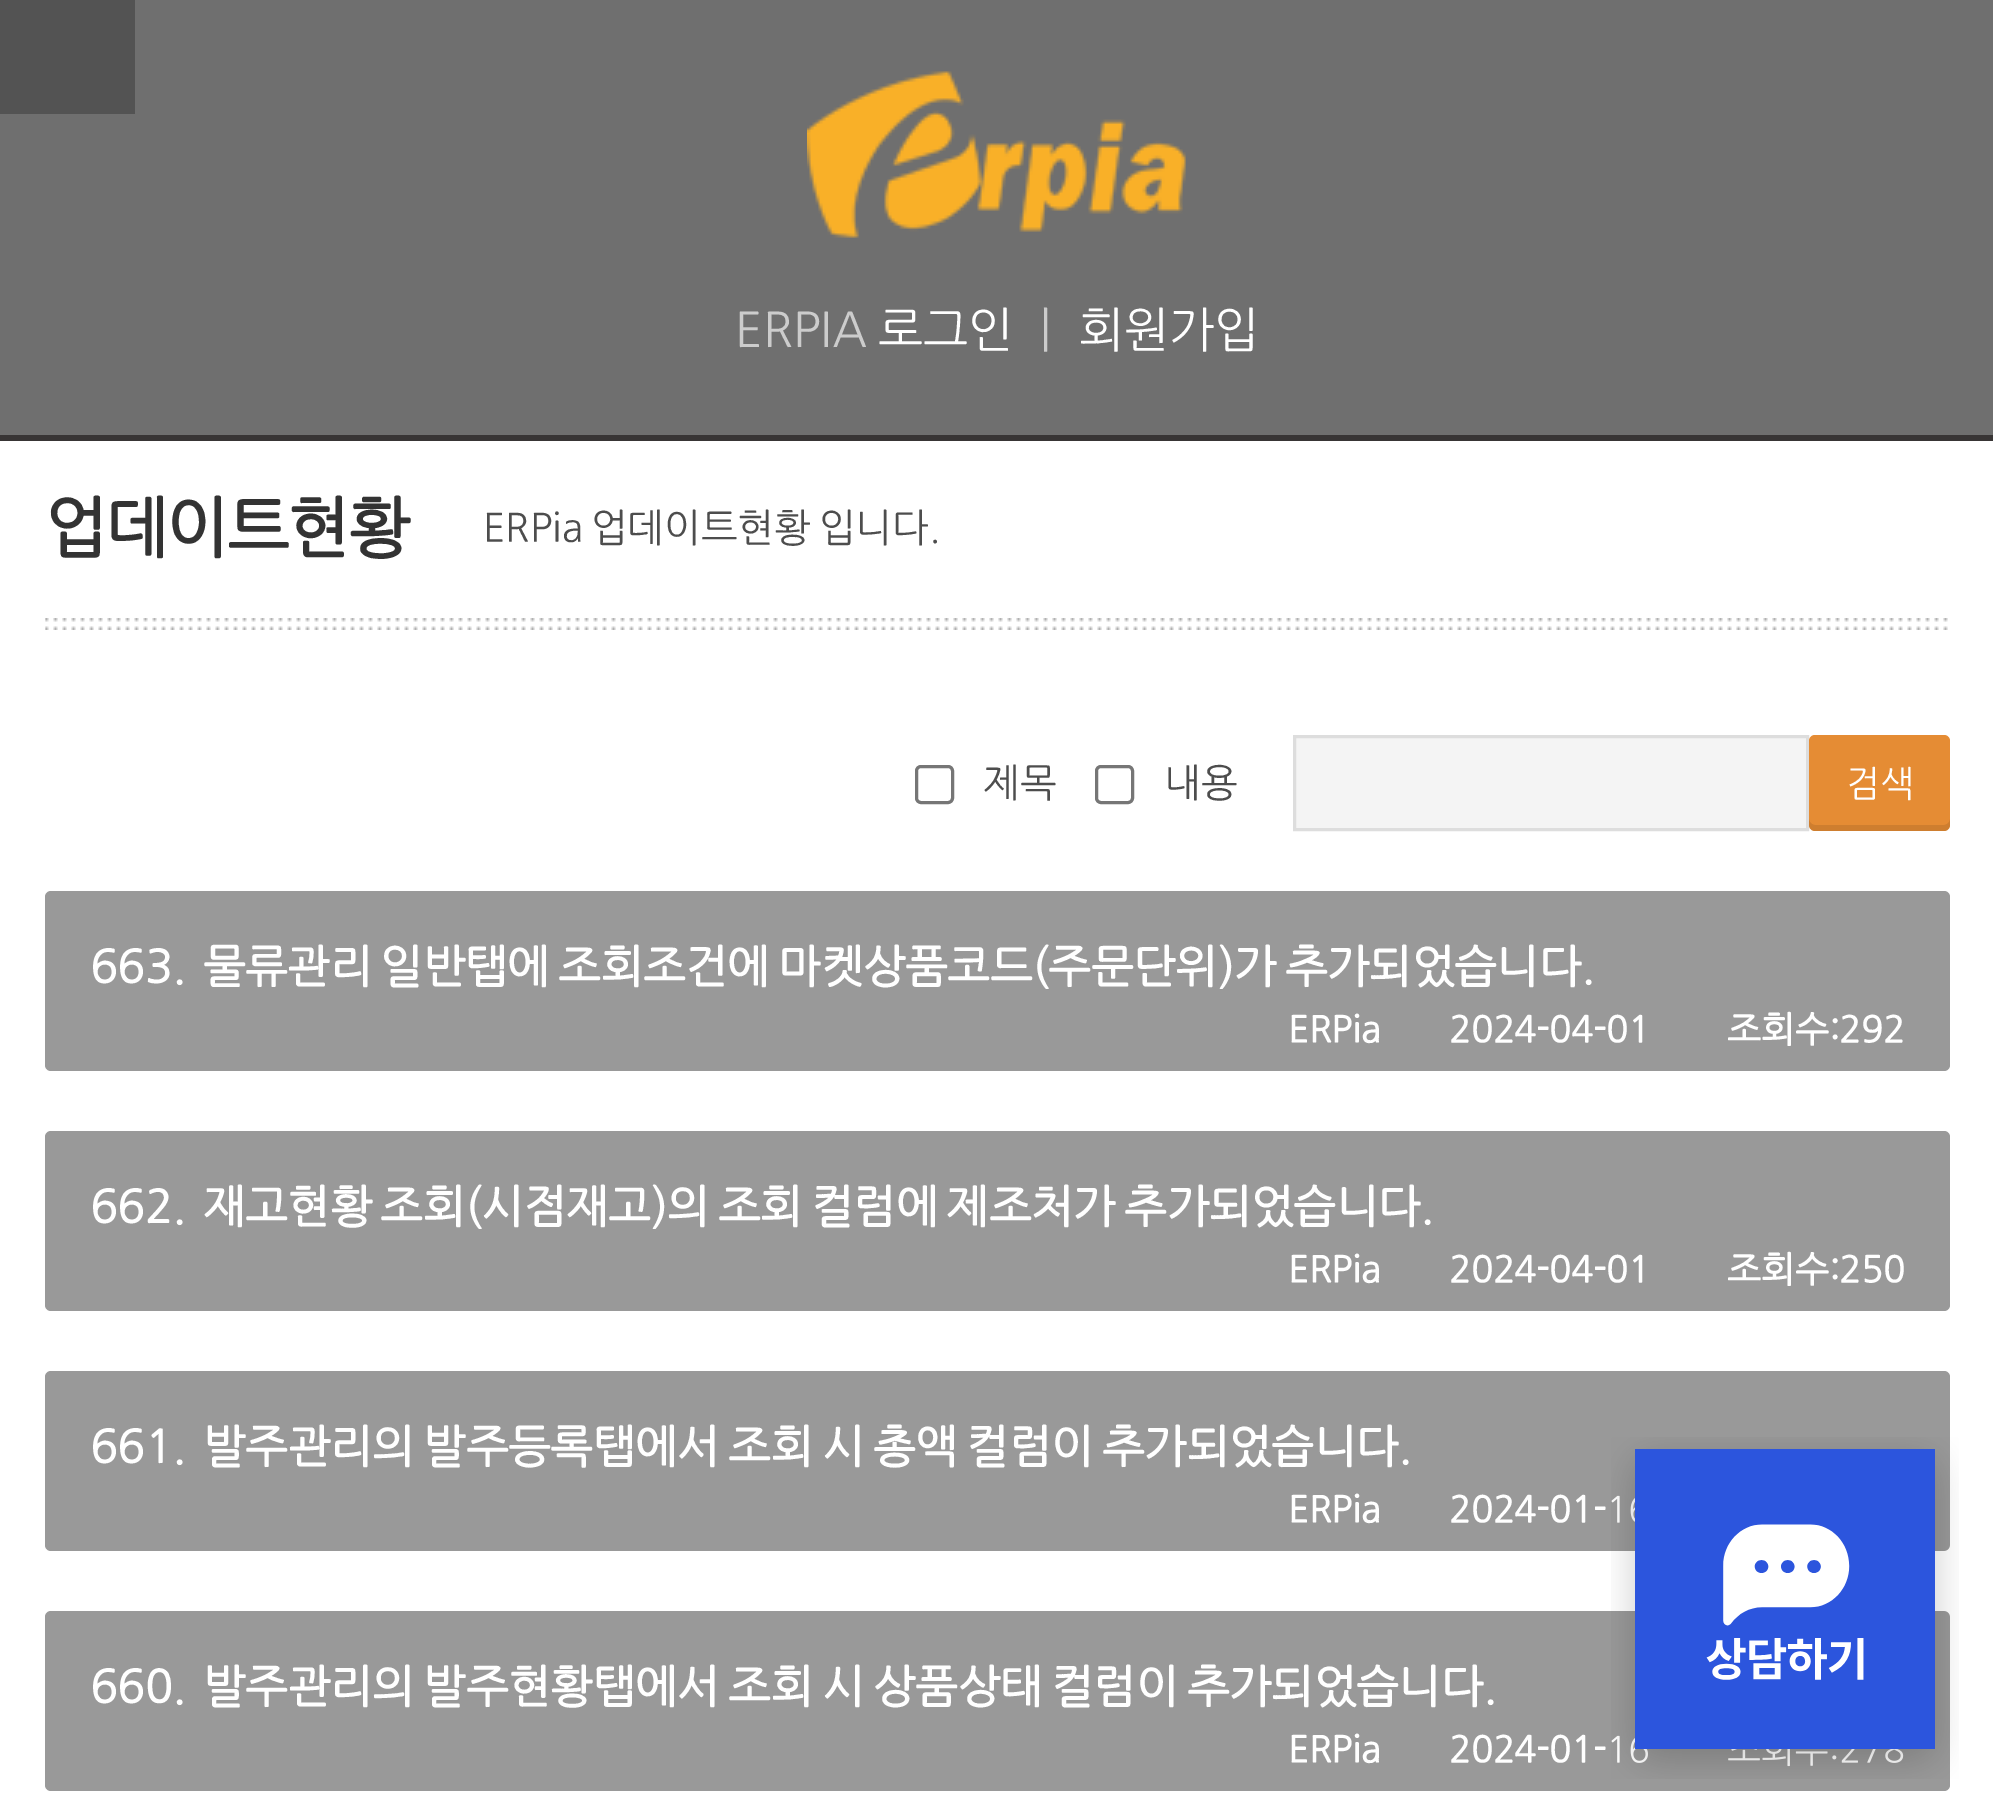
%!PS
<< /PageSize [1993 1807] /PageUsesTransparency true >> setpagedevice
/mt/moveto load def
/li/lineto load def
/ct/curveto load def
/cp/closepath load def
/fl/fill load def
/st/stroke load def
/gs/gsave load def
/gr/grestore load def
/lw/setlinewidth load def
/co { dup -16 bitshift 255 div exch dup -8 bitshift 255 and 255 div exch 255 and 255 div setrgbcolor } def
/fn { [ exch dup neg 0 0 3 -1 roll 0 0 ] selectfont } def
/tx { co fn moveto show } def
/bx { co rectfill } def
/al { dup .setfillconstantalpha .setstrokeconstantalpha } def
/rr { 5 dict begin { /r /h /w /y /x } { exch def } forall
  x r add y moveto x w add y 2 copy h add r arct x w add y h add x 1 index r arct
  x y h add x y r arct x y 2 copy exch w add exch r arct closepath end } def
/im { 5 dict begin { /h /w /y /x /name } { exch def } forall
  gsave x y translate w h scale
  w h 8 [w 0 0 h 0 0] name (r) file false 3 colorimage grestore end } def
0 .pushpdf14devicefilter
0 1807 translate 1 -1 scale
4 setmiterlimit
0 0 1993 1807 16#FFFFFF bx
0 0 1993 435 16#6F6F6F bx
0 435 1993 6 16#383535 bx
(media/1.raw) 807 71 379 167 im
0 0 135 114 16#535353 bx
(media/2.raw) 45 618 1903 12 im
16#767676 co
3 lw
916.5 766.5 36 36 4.5 rr st
1096.5 766.5 36 36 4.5 rr st
16#F4F4F4 co
1294.5 736.5 mt 1807.5 736.5 li 1807.5 829.5 li 1294.5 829.5 li cp gs fl gr
16#DDDDDD co
st
16#E58C34 co
1809 735 141 96 6 rr fl
0.1 al
16#000000 co
1809 819 mt 1809 825 li 1809 828 1812 831 1815 831 ct 1944 831 li 1947 831 1950 828 1950 825 ct 1950 819 li 1950 822 1947 825 1944 825 ct 1815 825 li 1812 825 1809 822 1809 819 ct cp fl
1 al
16#999999 co
45 891 1905 180 6 rr fl
45 1131 1905 180 6 rr fl
45 1371 1905 180 6 rr fl
45 1611 1905 180 6 rr fl
(ERPIA) 735 345 /NanumGothic-Regular 48 16#CCCCCC tx
(로그인) 878 345 /NanumGothic-Regular 48 16#FFFFFF tx
(ㅣ) 1023 345 /NanumGothic-Regular 48 16#CCCCCC tx
(회원가입) 1079 345 /NanumGothic-Regular 48 16#FFFFFF tx
/NanumGothic-Bold 66 fn
16#333333 co
45 549 mt -1.5 0 (업데이트현황) ashow
/NanumGothic-Regular 39 fn
16#4D4D4D co
483 540 mt -3 0 32 (ERPia 업데이트현황 입니다.) widthshow
(제목) 983 795 /NanumGothic-Regular 39 16#4D4D4D tx
(내용) 1164 795 /NanumGothic-Regular 39 16#4D4D4D tx
(검색) 1846 795 /NanumGothic-Regular 36 16#FFFFFF tx
/NanumGothic-Bold 45 fn
90 981 mt -4 0 32 (663.  물류관리 일반탭에 조회조건에 마켓상품코드\(주문단위\)가 추가되었습니다.) widthshow
(ERPia) 1288 1041 /NanumGothic-Bold 36 16#FFFFFF tx
(2024-04-01) 1449 1041 /NanumGothic-Bold 36 16#FFFFFF tx
(조회수:292) 1727 1041 /NanumGothic-Bold 36 16#FFFFFF tx
/NanumGothic-Bold 45 fn
90 1221 mt -4 0 32 (662.  재고현황 조회\(시점재고\)의 조회 컬럼에 제조처가 추가되었습니다.) widthshow
(ERPia) 1288 1281 /NanumGothic-Bold 36 16#FFFFFF tx
(2024-04-01) 1449 1281 /NanumGothic-Bold 36 16#FFFFFF tx
(조회수:250) 1727 1281 /NanumGothic-Bold 36 16#FFFFFF tx
/NanumGothic-Bold 45 fn
90 1461 mt -3.75 0 32 (661.  발주관리의 발주등록탭에서 조회 시 총액 컬럼이 추가되었습니다.) widthshow
(ERPia) 1288 1521 /NanumGothic-Bold 36 16#FFFFFF tx
(2024-01-1) 1449 1521 /NanumGothic-Bold 36 16#FFFFFF tx
/NanumGothic-Bold 45 fn
90 1701 mt -3.75 0 32 (660.  발주관리의 발주현황탭에서 조회 시 상품상태 컬럼이 추가되었습니다.) widthshow
(ERPia) 1288 1761 /NanumGothic-Bold 36 16#FFFFFF tx
(2024-01-16) 1449 1761 /NanumGothic-Bold 36 16#FFFFFF tx
(media/3.raw) 1611 1437 348 342 im
.poppdf14devicefilter showpage
